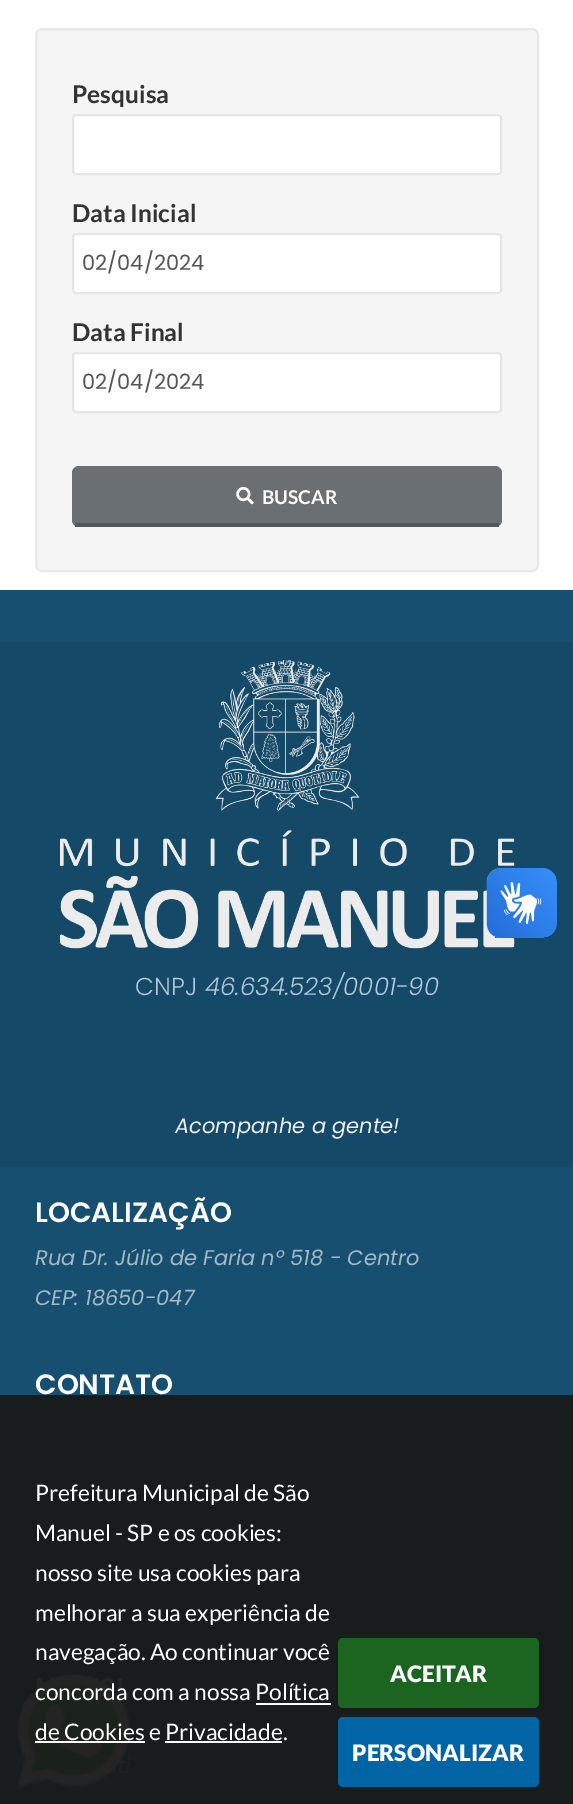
%!PS
<< /PageSize [573 1804] >> setpagedevice
/fl/fill load def
/st/stroke load def
/gs/gsave load def
/gr/grestore load def
/lw/setlinewidth load def
/co { dup -16 bitshift 255 div exch dup -8 bitshift 255 and 255 div exch 255 and 255 div setrgbcolor } def
/fn { [ exch dup neg 0 0 3 -1 roll 0 0 ] selectfont } def
/tx { co fn moveto show } def
/bx { co rectfill } def
/rr { 5 dict begin { /r /h /w /y /x } { exch def } forall
  x r add y moveto x w add y 2 copy h add r arct x w add y h add x 1 index r arct
  x y h add x y r arct x y 2 copy exch w add exch r arct closepath end } def
/im { 5 dict begin { /h /w /y /x /name } { exch def } forall
  gsave x y translate w h scale
  w h 8 [w 0 0 h 0 0] name (r) file false 3 colorimage grestore end } def
0 1804 translate 1 -1 scale
4 setmiterlimit
0 0 573 1804 16#FFFFFF bx
16#F5F5F5 co
36 29 502 542 6 rr gs fl gr
16#E7E9EB co
2 lw
st
16#FFFFFF co
73 115 428 59 3 rr gs fl gr
16#E5E5E5 co
st
16#FFFFFF co
73 234 428 59 3 rr gs fl gr
16#E5E5E5 co
st
16#FFFFFF co
73 353 428 59 3 rr gs fl gr
16#E5E5E5 co
st
16#6A6F73 co
72 466 430 61 7 rr fl
75 523 424 4 16#54585B bx
(media/1.raw) 236 486 18 19 im
0 590 573 805 16#164F70 bx
0 1395 573 409 16#191C1D bx
0 642 573 525 16#144968 bx
(media/2.raw) 60 660 455 289 im
(media/3.raw) 486 868 71 70 im
(media/4.raw) 487 868 70 70 im
256 1703 75 2 16#FFFFFF bx
(media/5.raw) 17 1674 113 113 im
35 1741 110 2 16#FFFFFF bx
165 1741 117 2 16#FFFFFF bx
16#1B6520 co
338 1638 201 70 5 rr fl
16#0164A4 co
338 1717 201 70 5 rr fl
(Pesquisa) 72 103 /Lato-Bold 24.5 16#333333 tx
(Data Inicial) 72 222 /Lato-Bold 24.5 16#333333 tx
(02/04/2024) 82 270 /Poppins-Regular 21 16#555555 tx
(Data Final) 72 341 /Lato-Bold 24.5 16#333333 tx
(02/04/2024) 82 389 /Poppins-Regular 21 16#555555 tx
(BUSCAR) 262 504 /Lato-Bold 19 16#FFFFFF tx
(CNPJ) 135 995 /Poppins-Light 24.5 16#B2C7DC tx
(46.634.523/0001-90) 205 995 /Poppins-LightItalic 24.5 16#B2C7DC tx
(Acompanhe a gente!) 175 1133 /Poppins-Italic 21 16#EDEDED tx
(LOCALIZAÇÃO) 35 1222 /Poppins-SemiBold 28 16#FFFFFF tx
(Rua Dr. Júlio de Faria nº 518 - Centro) 35 1265 /Poppins-Italic 21 16#A2B9C6 tx
(CEP: 18650-047) 35 1305 /Poppins-Italic 21 16#A2B9C6 tx
(CONTATO) 35 1394 /Poppins-SemiBold 28 16#FFFFFF tx
(Prefeitura Municipal de São) 35 1501 /Lato-Regular 22.75 16#FFFFFF tx
(Manuel - SP e os cookies:) 35 1541 /Lato-Regular 22.75 16#FFFFFF tx
(nosso site usa cookies para) 35 1581 /Lato-Regular 22.75 16#FFFFFF tx
(melhorar a sua experiência de) 35 1621 /Lato-Regular 22.75 16#FFFFFF tx
(navegação. Ao continuar você) 35 1660 /Lato-Regular 22.75 16#FFFFFF tx
(concorda com a nossa Política) 35 1700 /Lato-Regular 22.75 16#FFFFFF tx
(de Cookies e Privacidade.) 35 1740 /Lato-Regular 22.75 16#FFFFFF tx
(ACEITAR) 390 1682 /Lato-Black 22.75 16#FFFFFF tx
(PERSONALIZAR) 352 1761 /Lato-Black 22.75 16#FFFFFF tx
showpage
